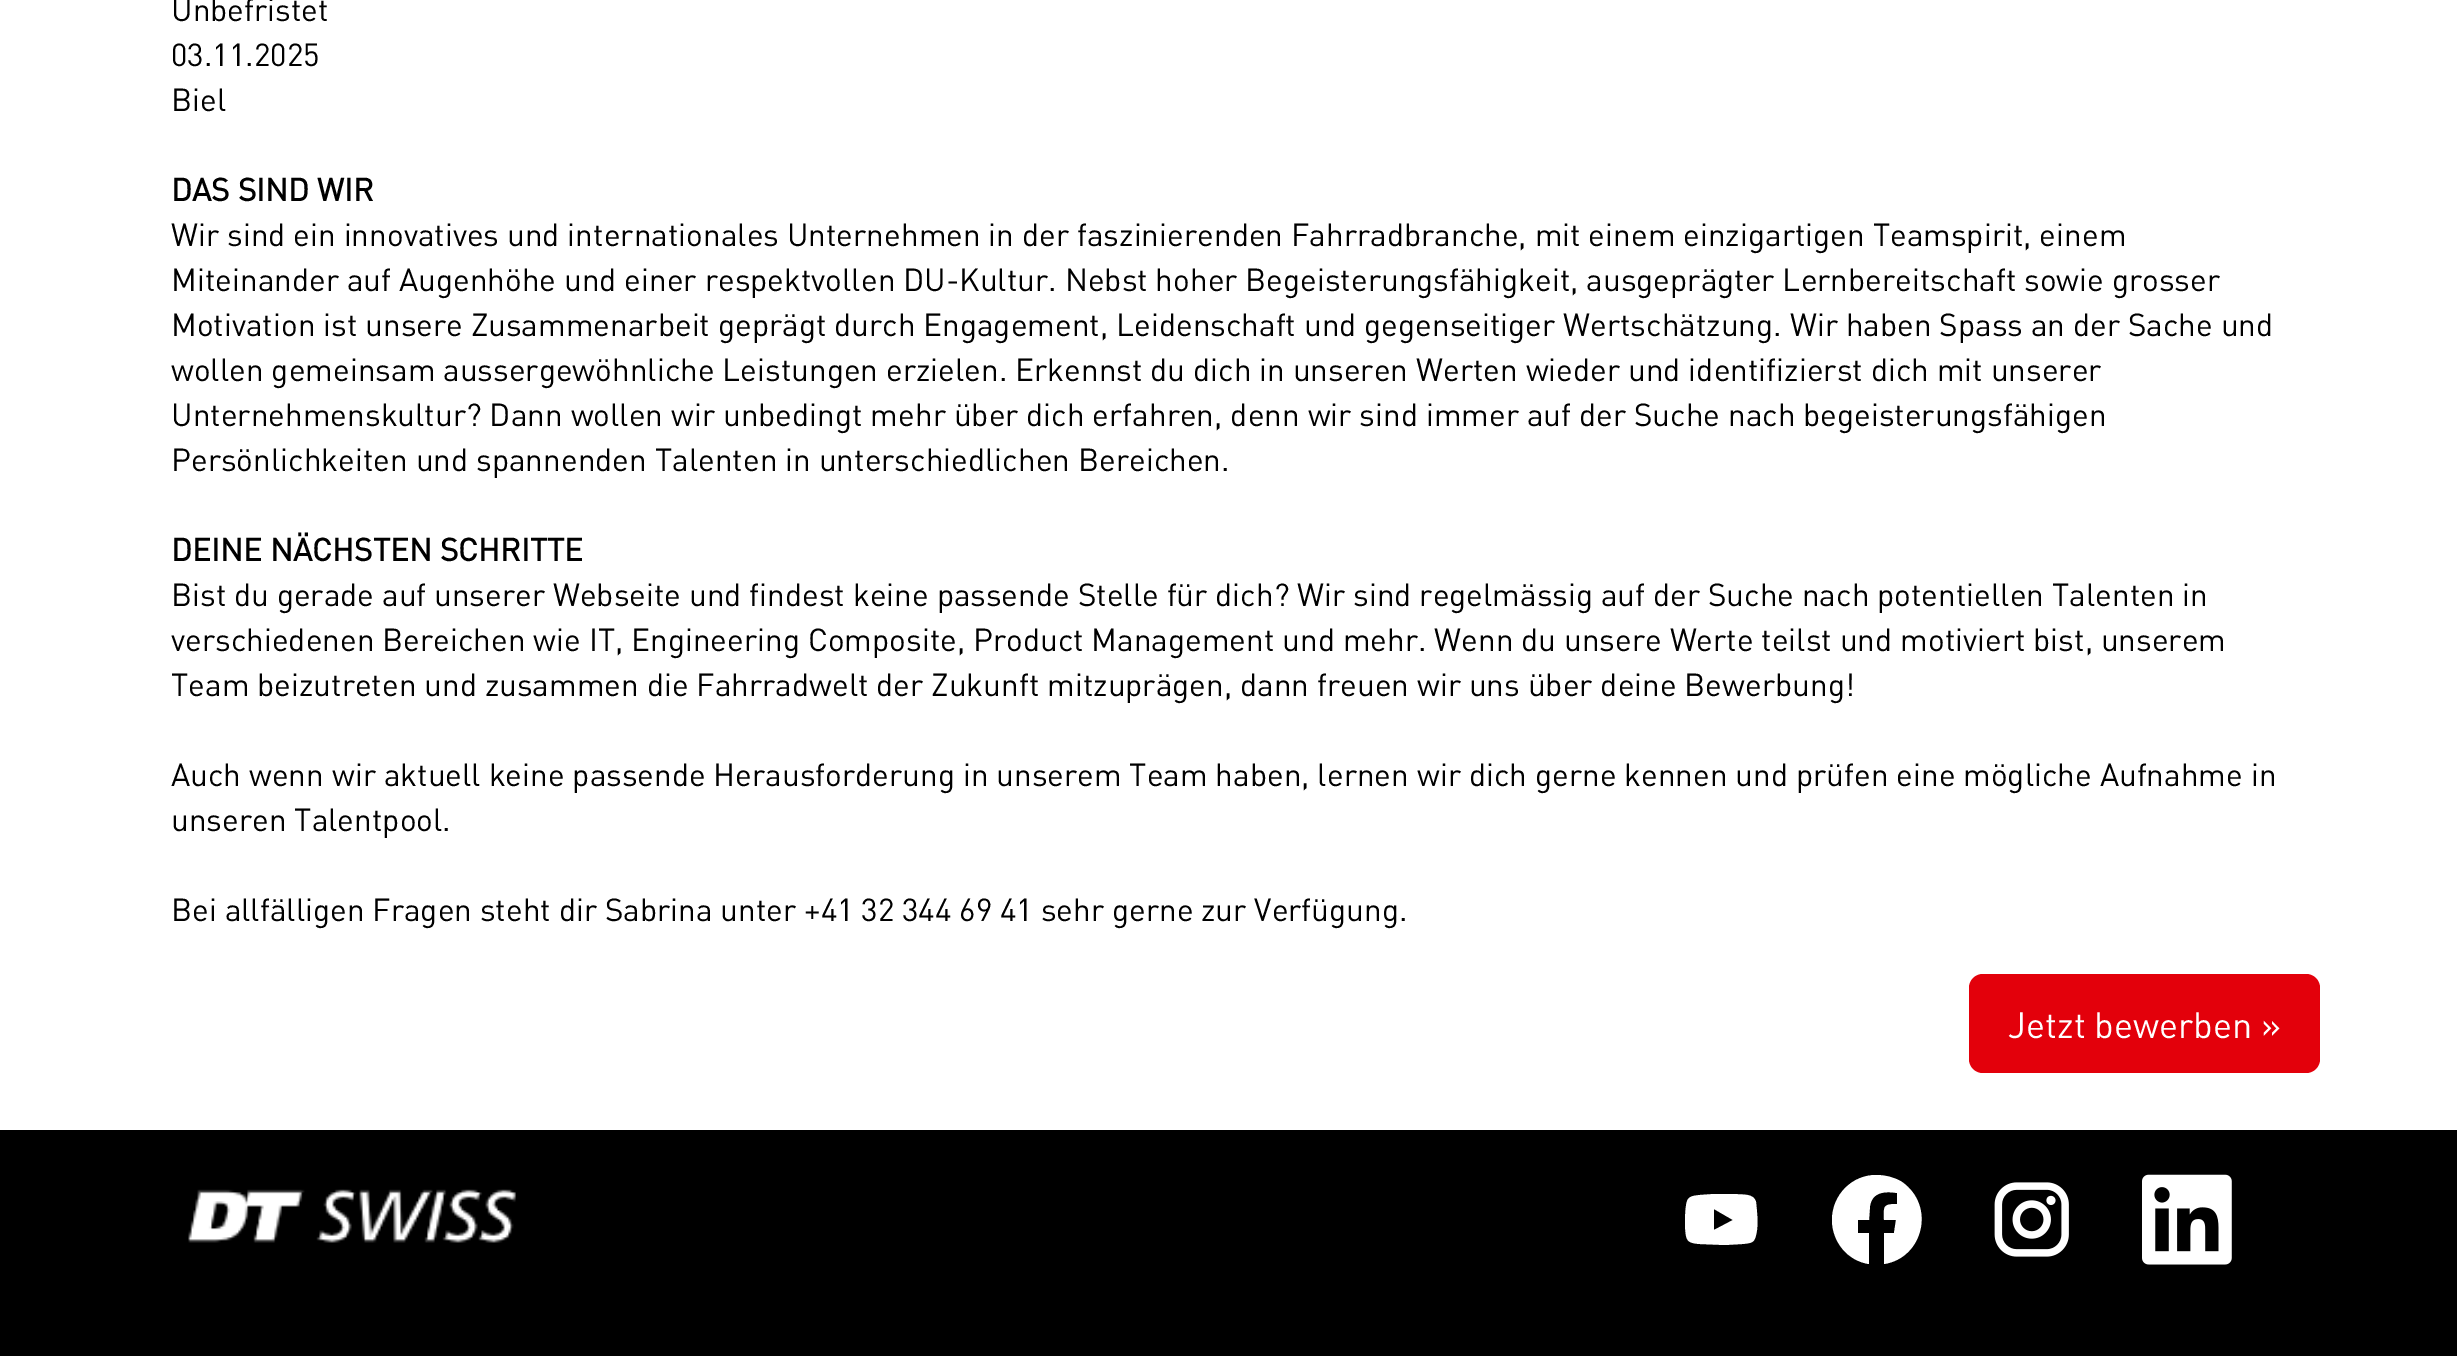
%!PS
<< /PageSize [2457 1356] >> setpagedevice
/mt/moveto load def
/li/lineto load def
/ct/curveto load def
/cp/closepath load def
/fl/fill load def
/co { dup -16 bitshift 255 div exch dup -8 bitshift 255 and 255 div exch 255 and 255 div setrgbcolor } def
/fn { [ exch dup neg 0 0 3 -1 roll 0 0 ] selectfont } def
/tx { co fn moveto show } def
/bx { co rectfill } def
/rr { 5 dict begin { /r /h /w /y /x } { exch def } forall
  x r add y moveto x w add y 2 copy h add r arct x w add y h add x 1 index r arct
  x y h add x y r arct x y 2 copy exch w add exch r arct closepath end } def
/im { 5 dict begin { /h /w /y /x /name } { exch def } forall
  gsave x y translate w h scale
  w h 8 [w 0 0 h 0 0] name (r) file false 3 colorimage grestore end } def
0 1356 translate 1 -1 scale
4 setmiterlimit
0 0 2457 1356 16#FFFFFF bx
16#E3000B co
1969 974 351 99 14 rr fl
0 1130 2457 226 16#000000 bx
(media/1.raw) 188 1189 328 54 im
16#FFFFFF co
1756 1202 mt 1754 1193 1742 1195 1735 1194 ct 1714 1194 li 1700 1195 li 1690 1196 1687 1197 1686 1206 ct 1685 1213 1685 1220 1685 1226 ct 1686 1240 1686 1243 1700 1244 ct 1725 1245 li 1742 1244 li 1754 1243 1755 1242 1757 1230 ct 1758 1221 1757 1211 1756 1202 ct cp 1714 1230 mt 1714 1209 li 1733 1220 li cp fl
1876 1175 mt 1852 1175 1832 1195 1832 1220 ct 1832 1242 1848 1261 1869 1264 ct 1869 1233 li 1858 1233 li 1858 1220 li 1869 1220 li 1870 1206 li 1872 1192 1885 1191 1897 1193 ct 1897 1204 li 1882 1204 1884 1207 1884 1220 ct 1896 1220 li 1894 1233 li 1884 1233 li 1884 1264 li 1923 1258 1936 1206 1902 1182 ct 1894 1177 1885 1175 1876 1175 ct cp fl
(media/2.raw) 1994 1182 75 75 im
(media/3.raw) 2142 1174 90 91 im
(Unbefristet) 171 21 /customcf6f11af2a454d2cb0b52-Regular 31.5 16#000000 tx
(03.11.2025) 171 66 /customcf6f11af2a454d2cb0b52-Regular 31.5 16#000000 tx
(Biel) 171 111 /customcf6f11af2a454d2cb0b52-Regular 31.5 16#000000 tx
(DAS SIND WIR) 171 201 /customcf6f11af2a454d2cb0b52-Bold 31.5 16#000000 tx
(Wir sind ein innovatives und internationales Unternehmen in der faszinierenden Fahrradbranche, mit einem einzigartigen Teamspirit, einem) 171 246 /customcf6f11af2a454d2cb0b52-Regular 31.5 16#000000 tx
(Miteinander auf Augenhöhe und einer respektvollen DU-Kultur. Nebst hoher Begeisterungsfähigkeit, ausgeprägter Lernbereitschaft sowie grosser) 171 291 /customcf6f11af2a454d2cb0b52-Regular 31.5 16#000000 tx
(Motivation ist unsere Zusammenarbeit geprägt durch Engagement, Leidenschaft und gegenseitiger Wertschätzung. Wir haben Spass an der Sache und) 171 336 /customcf6f11af2a454d2cb0b52-Regular 31.5 16#000000 tx
(wollen gemeinsam aussergewöhnliche Leistungen erzielen. Erkennst du dich in unseren Werten wieder und identifizierst dich mit unserer) 171 381 /customcf6f11af2a454d2cb0b52-Regular 31.5 16#000000 tx
(Unternehmenskultur? Dann wollen wir unbedingt mehr über dich erfahren, denn wir sind immer auf der Suche nach begeisterungsfähigen) 171 426 /customcf6f11af2a454d2cb0b52-Regular 31.5 16#000000 tx
(Persönlichkeiten und spannenden Talenten in unterschiedlichen Bereichen.) 171 471 /customcf6f11af2a454d2cb0b52-Regular 31.5 16#000000 tx
(DEINE NÄCHSTEN SCHRITTE) 171 561 /customcf6f11af2a454d2cb0b52-Bold 31.5 16#000000 tx
(Bist du gerade auf unserer Webseite und findest keine passende Stelle für dich? Wir sind regelmässig auf der Suche nach potentiellen Talenten in) 171 606 /customcf6f11af2a454d2cb0b52-Regular 31.5 16#000000 tx
(verschiedenen Bereichen wie IT, Engineering Composite, Product Management und mehr. Wenn du unsere Werte teilst und motiviert bist, unserem) 171 651 /customcf6f11af2a454d2cb0b52-Regular 31.5 16#000000 tx
(Team beizutreten und zusammen die Fahrradwelt der Zukunft mitzuprägen, dann freuen wir uns über deine Bewerbung!) 171 696 /customcf6f11af2a454d2cb0b52-Regular 31.5 16#000000 tx
(Auch wenn wir aktuell keine passende Herausforderung in unserem Team haben, lernen wir dich gerne kennen und prüfen eine mögliche Aufnahme in) 171 786 /customcf6f11af2a454d2cb0b52-Regular 31.5 16#000000 tx
(unseren Talentpool.) 171 831 /customcf6f11af2a454d2cb0b52-Regular 31.5 16#000000 tx
(Bei allfälligen Fragen steht dir Sabrina unter +41 32 344 69 41 sehr gerne zur Verfügung.) 171 921 /customcf6f11af2a454d2cb0b52-Regular 31.5 16#000000 tx
(Jetzt bewerben ») 2008 1038 /customcf6f11af2a454d2cb0b52-Regular 36 16#FFFFFF tx
showpage
